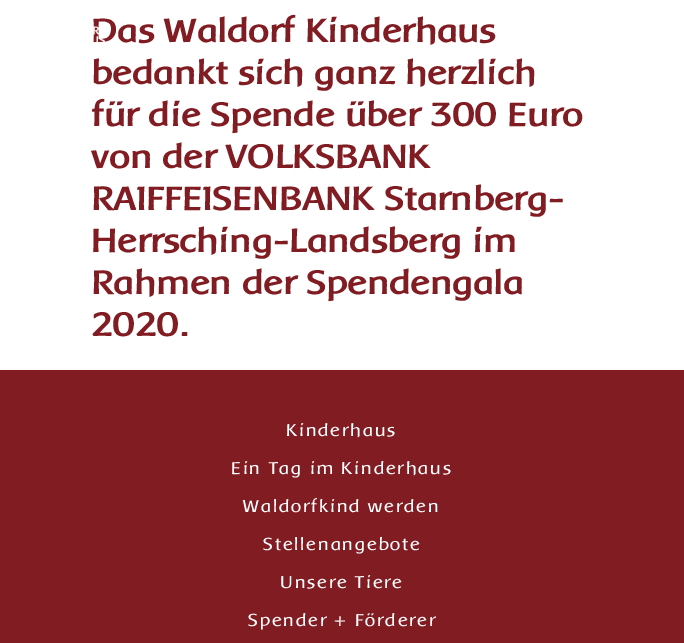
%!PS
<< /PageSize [684 643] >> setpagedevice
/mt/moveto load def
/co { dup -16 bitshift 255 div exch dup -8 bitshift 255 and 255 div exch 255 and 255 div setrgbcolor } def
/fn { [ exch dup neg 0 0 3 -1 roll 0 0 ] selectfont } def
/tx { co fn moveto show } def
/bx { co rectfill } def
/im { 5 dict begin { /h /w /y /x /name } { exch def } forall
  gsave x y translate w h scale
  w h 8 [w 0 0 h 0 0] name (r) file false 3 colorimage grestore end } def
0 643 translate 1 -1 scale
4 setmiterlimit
0 0 684 643 16#FFFFFF bx
0 370 684 273 16#801C22 bx
(Das Waldorf Kinderhaus) 92 42 /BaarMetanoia-Bold 35 16#801C22 tx
(bedankt sich ganz herzlich) 92 84 /BaarMetanoia-Bold 35 16#801C22 tx
(für die Spende über 300 Euro) 92 126 /BaarMetanoia-Bold 35 16#801C22 tx
(von der VOLKSBANK) 92 168 /BaarMetanoia-Bold 35 16#801C22 tx
(RAIFFEISENBANK Starnberg-) 92 210 /BaarMetanoia-Bold 35 16#801C22 tx
(Herrsching-Landsberg im) 92 252 /BaarMetanoia-Bold 35 16#801C22 tx
(Rahmen der Spendengala) 92 294 /BaarMetanoia-Bold 35 16#801C22 tx
(2020.) 92 336 /BaarMetanoia-Bold 35 16#801C22 tx
(media/1.raw) 93 26 12 17 im
/BaarMetanoia-Regular 18 fn
16#FFFFFF co
286 436 mt 1.5 0 (Kinderhaus) ashow
231 474 mt 1.5 0 (Ein Tag im Kinderhaus) ashow
243 512 mt 1.5 0 (Waldorfkind werden) ashow
263 550 mt 1.5 0 (Stellenangebote) ashow
280 588 mt 1.5 0 (Unsere Tiere) ashow
248 626 mt 1.5 0 (Spender + Förderer) ashow
showpage
